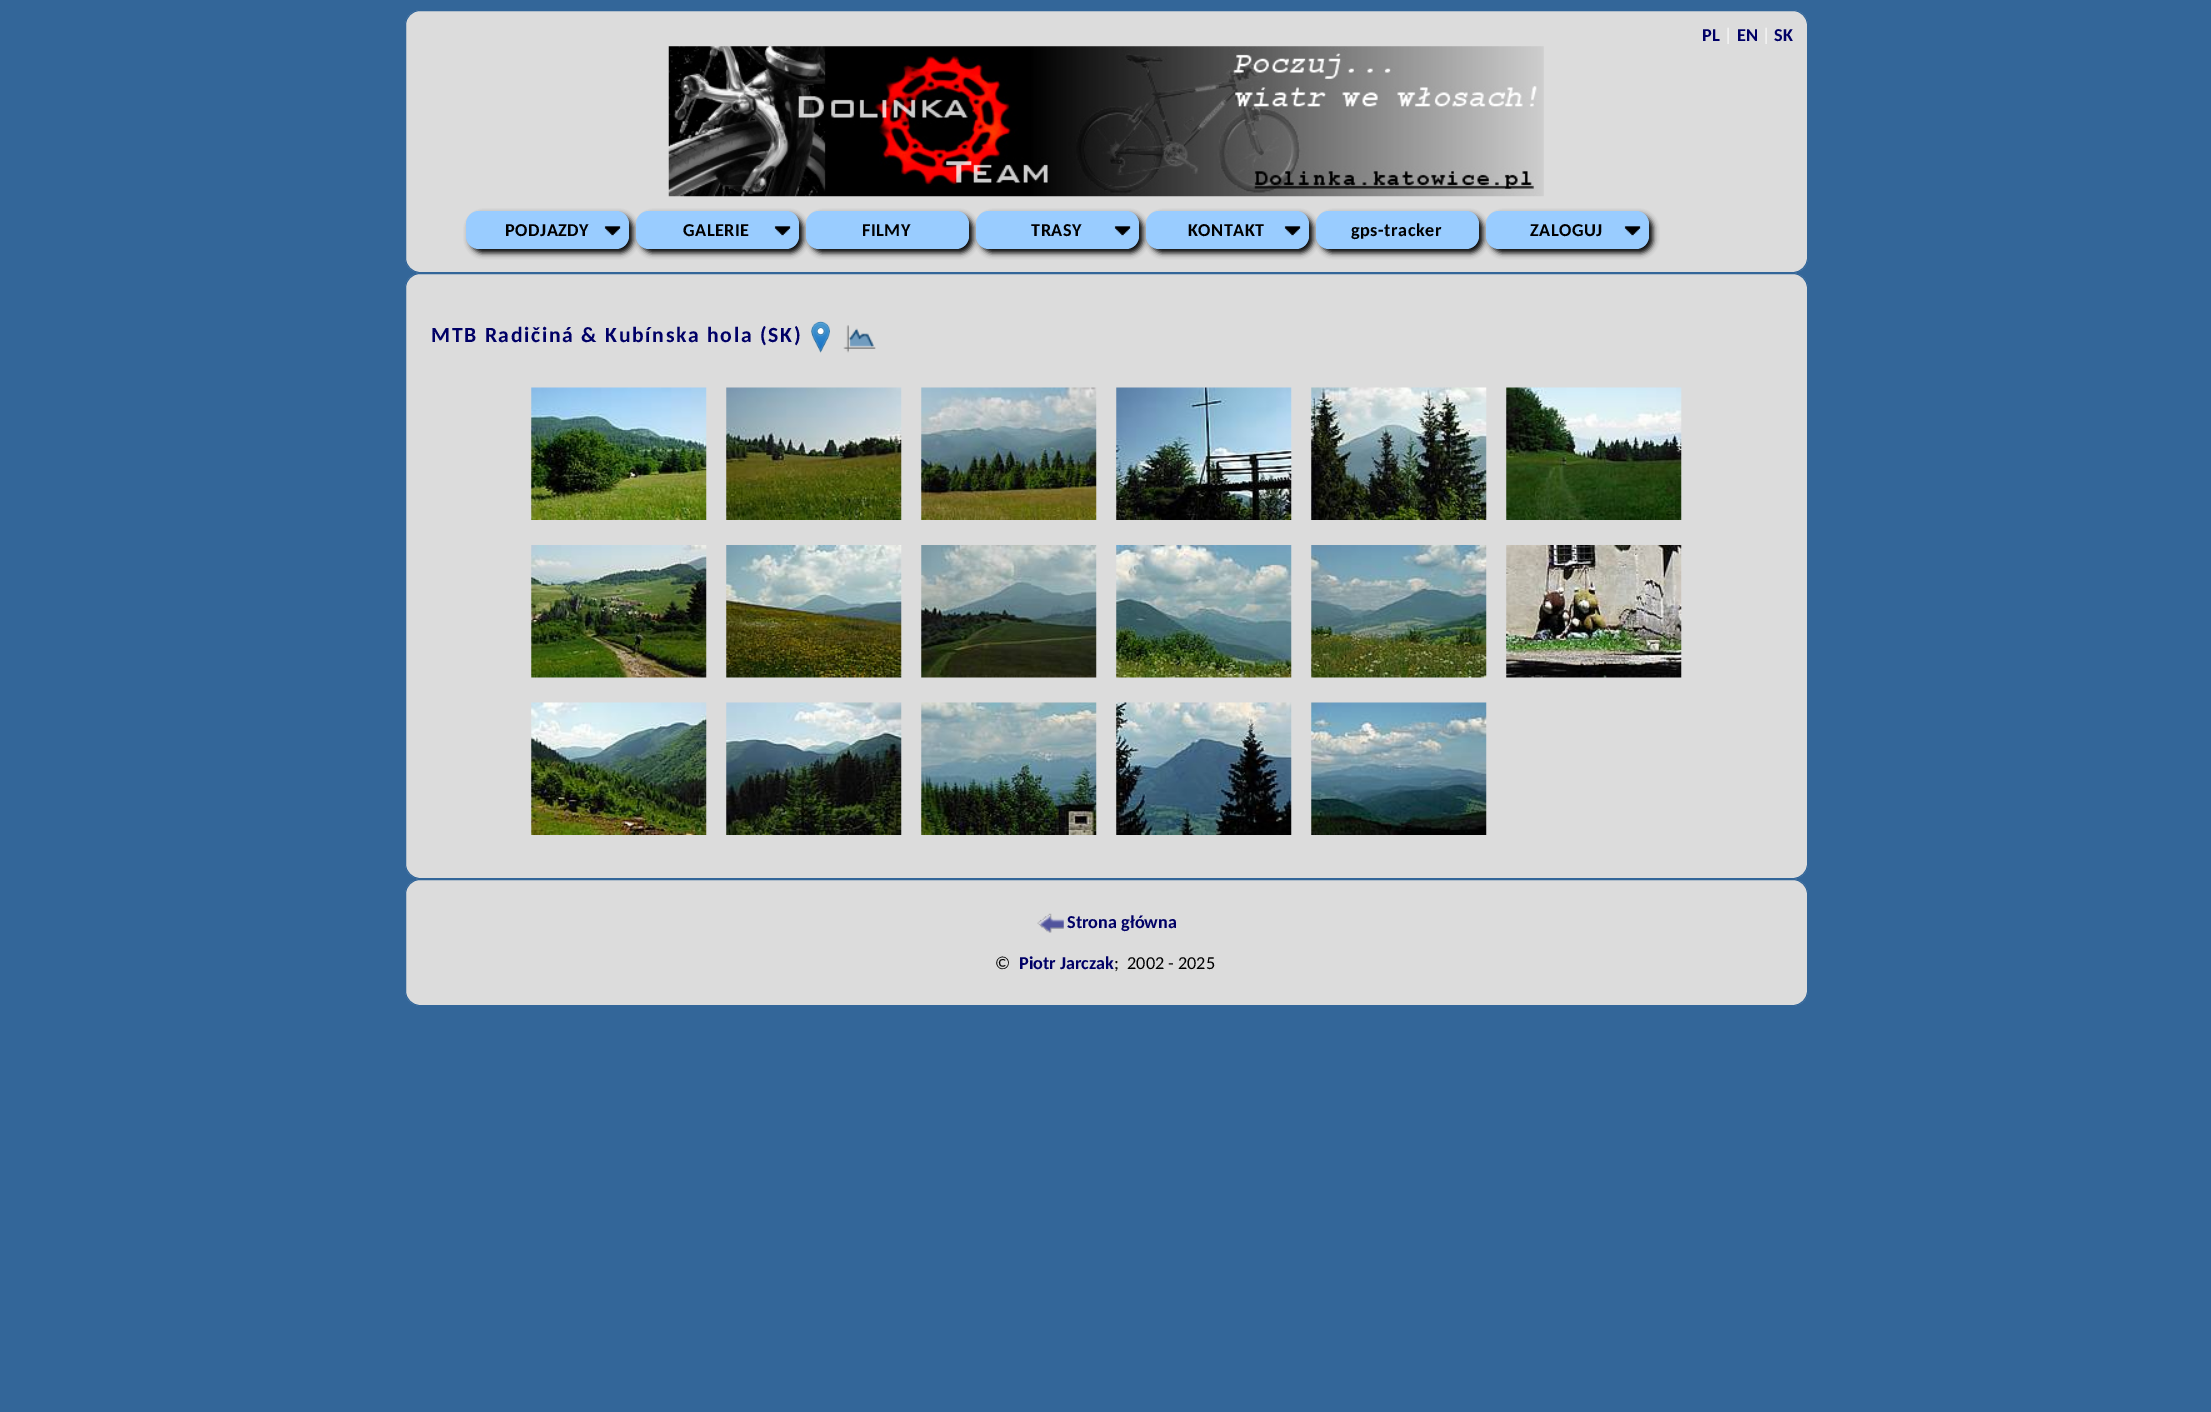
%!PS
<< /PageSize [2211 1412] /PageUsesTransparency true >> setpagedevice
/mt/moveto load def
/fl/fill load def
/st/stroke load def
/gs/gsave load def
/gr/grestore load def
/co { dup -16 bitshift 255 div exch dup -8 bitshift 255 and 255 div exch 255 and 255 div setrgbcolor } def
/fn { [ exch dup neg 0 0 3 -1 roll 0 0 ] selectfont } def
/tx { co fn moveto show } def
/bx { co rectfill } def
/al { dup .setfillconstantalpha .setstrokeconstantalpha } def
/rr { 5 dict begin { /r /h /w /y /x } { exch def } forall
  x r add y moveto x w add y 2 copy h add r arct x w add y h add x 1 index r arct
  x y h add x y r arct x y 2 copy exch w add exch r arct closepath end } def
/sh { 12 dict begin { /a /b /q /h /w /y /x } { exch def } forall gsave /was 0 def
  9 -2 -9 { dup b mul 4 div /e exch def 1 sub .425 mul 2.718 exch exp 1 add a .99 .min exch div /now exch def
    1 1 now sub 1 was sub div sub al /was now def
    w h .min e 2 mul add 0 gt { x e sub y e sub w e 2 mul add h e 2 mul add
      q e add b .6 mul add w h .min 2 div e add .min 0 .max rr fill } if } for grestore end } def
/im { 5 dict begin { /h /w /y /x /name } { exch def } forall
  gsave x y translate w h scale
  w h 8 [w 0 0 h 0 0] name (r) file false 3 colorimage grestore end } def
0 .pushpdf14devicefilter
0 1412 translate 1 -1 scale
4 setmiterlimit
0 0 2211 1412 16#336699 bx
16#DCDCDC co
405.5 10.5 1402 262 14.5 rr gs fl gr
16#336699 co
st
(media/1.raw) 668 46 876 151 im
16#000000 co
470 215 163 38 13 3 1 sh
16#99CCFF co
466 211 163 38 13 rr fl
(media/2.raw) 604 226 17 10 im
16#000000 co
640 215 163 38 13 3 1 sh
16#99CCFF co
636 211 163 38 13 rr fl
(media/2.raw) 774 226 17 10 im
16#000000 co
810 215 163 38 13 3 1 sh
16#99CCFF co
806 211 163 38 13 rr fl
16#000000 co
980 215 163 38 13 3 1 sh
16#99CCFF co
976 211 163 38 13 rr fl
(media/3.raw) 1114 226 17 10 im
16#000000 co
1150 215 163 38 13 3 1 sh
16#99CCFF co
1146 211 163 38 13 rr fl
(media/2.raw) 1284 226 17 10 im
16#000000 co
1320 215 163 38 13 3 1 sh
16#99CCFF co
1316 211 163 38 13 rr fl
16#000000 co
1490 215 163 38 13 3 1 sh
16#99CCFF co
1486 211 163 38 13 rr fl
(media/2.raw) 1624 226 17 10 im
16#DCDCDC co
405.5 273.5 1402 605 14.5 rr gs fl gr
16#336699 co
st
(media/4.raw) 811 321 19 32 im
(media/5.raw) 843 325 33 28 im
(media/6.raw) 531 387 176 133 im
(media/7.raw) 726 387 176 133 im
(media/8.raw) 921 387 176 133 im
(media/9.raw) 1116 387 176 133 im
(media/10.raw) 1311 387 176 133 im
(media/11.raw) 1506 387 176 133 im
(media/12.raw) 531 545 176 133 im
(media/13.raw) 726 545 176 133 im
(media/14.raw) 921 545 176 133 im
(media/15.raw) 1116 545 176 133 im
(media/16.raw) 1311 545 176 133 im
(media/17.raw) 1506 545 176 133 im
(media/18.raw) 531 702 176 133 im
(media/19.raw) 726 702 176 133 im
(media/20.raw) 921 702 176 133 im
(media/21.raw) 1116 702 176 133 im
(media/22.raw) 1311 702 176 133 im
16#DCDCDC co
405.5 879.5 1402 126 14.5 rr gs fl gr
16#336699 co
st
(media/23.raw) 1037 913 27 20 im
(PL) 1702 41 /Carlito-Bold 18.25 16#000066 tx
(|) 1724 41 /Carlito-Regular 18.25 16#F8F8F8 tx
(EN) 1737 41 /Carlito-Bold 18.25 16#000066 tx
(|) 1762 41 /Carlito-Regular 18.25 16#F8F8F8 tx
(SK) 1774 41 /Carlito-Bold 18.25 16#000066 tx
16#000000 co
505 236 mt .5 0 (PODJAZDY) ashow
683 236 mt .5 0 (GALERIE) ashow
862 236 mt .5 0 (FILMY) ashow
1031 236 mt .5 0 (TRASY) ashow
1188 236 mt .5 0 (KONTAKT) ashow
1351 236 mt .5 0 (gps-tracker) ashow
1530 236 mt .5 0 (ZALOGUJ) ashow
/Carlito-Bold 21.7 fn
16#000066 co
431 342 mt 1.7 0 (MTB Radičiná & Kubínska hola \(SK\)) ashow
(Strona główna) 1067 928 /Carlito-Bold 18.25 16#000066 tx
(©) 995 969 /Carlito-Regular 18.25 16#000000 tx
(Piotr Jarczak) 1019 969 /Carlito-Bold 18.25 16#000066 tx
(;  2002 - 2025) 1114 969 /Carlito-Regular 18.25 16#000000 tx
.poppdf14devicefilter showpage
